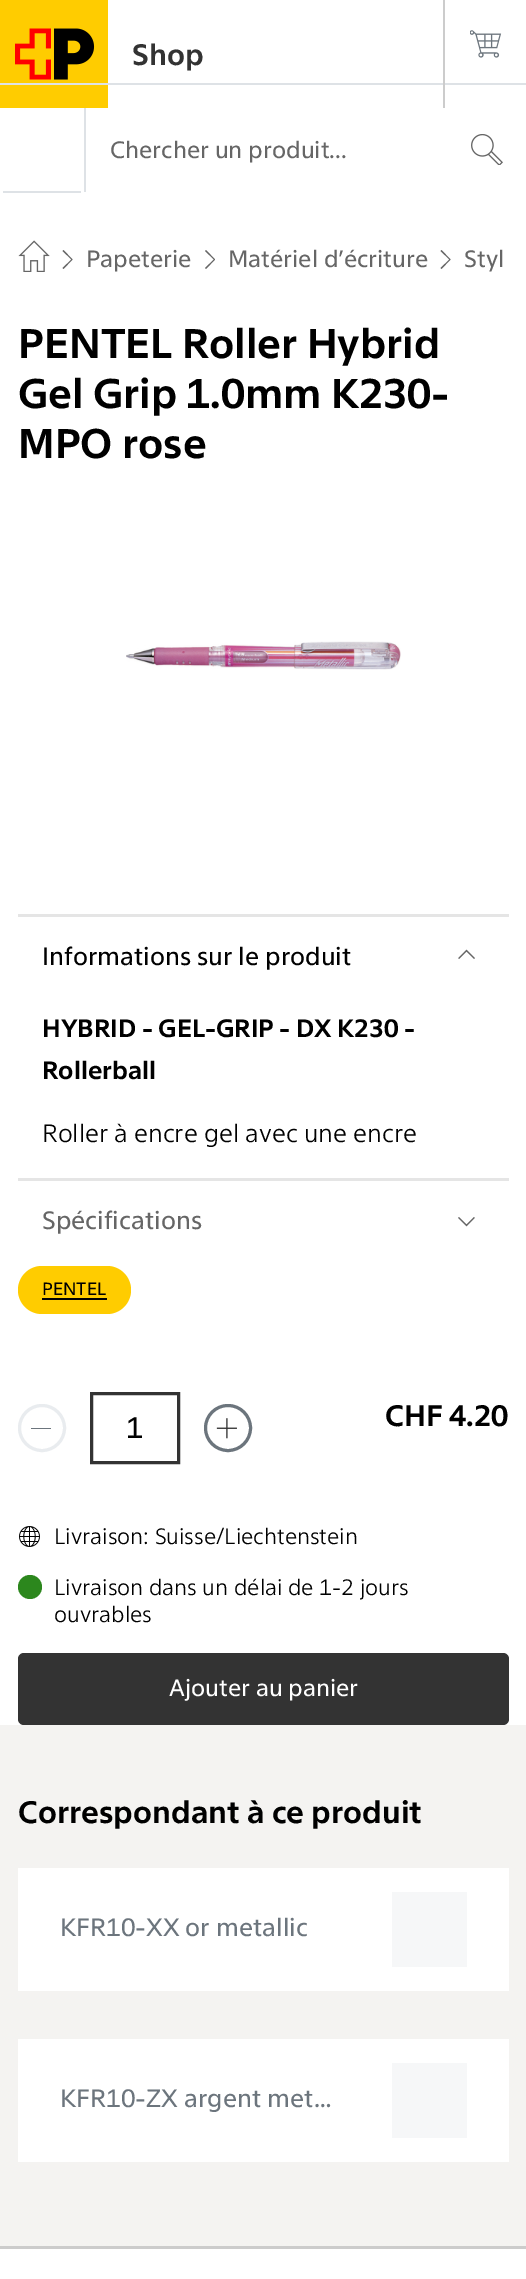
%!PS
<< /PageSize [526 2279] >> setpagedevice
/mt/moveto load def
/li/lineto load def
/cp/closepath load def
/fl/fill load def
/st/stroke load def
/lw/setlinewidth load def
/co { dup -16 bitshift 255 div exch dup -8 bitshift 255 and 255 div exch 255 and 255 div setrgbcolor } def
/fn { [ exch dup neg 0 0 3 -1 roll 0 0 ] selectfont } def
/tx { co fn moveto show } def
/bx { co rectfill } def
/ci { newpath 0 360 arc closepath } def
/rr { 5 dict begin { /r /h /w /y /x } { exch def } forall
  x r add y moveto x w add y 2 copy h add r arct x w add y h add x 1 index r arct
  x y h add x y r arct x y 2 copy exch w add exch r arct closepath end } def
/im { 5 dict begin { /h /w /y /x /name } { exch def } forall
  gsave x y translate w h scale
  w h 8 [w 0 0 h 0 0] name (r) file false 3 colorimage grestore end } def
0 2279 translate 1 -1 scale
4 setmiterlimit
0 0 526 2279 16#FFFFFF bx
(media/1.raw) 0 0 108 108 im
0 83 526 2 16#DEE2E6 bx
443 0 2 108 16#CCCCCC bx
(media/2.raw) 470 30 32 28 im
84 108 2 84 16#DEE2E6 bx
(media/3.raw) 471 134 32 31 im
3 191 78 2 16#DEE2E6 bx
(media/4.raw) 18 240 32 32 im
16#666666 co
63.5 250 mt 62.5 251 li 71.5 259.5 li 62.5 268 li 63.5 269 li 72.5 259.5 li cp fl
206 250 mt 205 251 li 214 259.5 li 205 268 li 206 269 li 215 259.5 li cp fl
441.5 250 mt 440.5 251 li 449.5 259.5 li 440.5 268 li 441.5 269 li 450.5 259.5 li cp fl
(media/5.raw) 126 641 275 29 im
18 914 491 3 16#E5E5E5 bx
(media/6.raw) 458 949 17 10 im
18 1178 491 3 16#E5E5E5 bx
(media/7.raw) 458 1217 17 10 im
16#FFCC00 co
18 1266 113 48 24 rr fl
42 1298 65 2 16#000000 bx
16#E9ECEF co
3 lw
42 1428 22.5 ci st
31 1428 20 1 16#6C757D bx
16#333333 co
91.5 1393.5 87 69 rectstroke
16#6C757D co
228 1428 22.5 ci st
(media/8.raw) 216 1418 21 21 im
(media/9.raw) 19 1526 21 21 im
16#2C871D co
30 1587 12 ci fl
16#333333 co
18 1653 491 72 6 rr fl
0 1725 526 521 16#F4F3F1 bx
18 1868 491 123 16#FFFFFF bx
392 1892 75 75 16#F6F7F8 bx
18 2039 491 123 16#FFFFFF bx
392 2063 75 75 16#F6F7F8 bx
0 2246 526 3 16#CCCCCC bx
(Shop) 132 65 /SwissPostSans-Bold 30 16#333333 tx
(Chercher un produit...) 110 158 /SwissPostSans-Regular 24 16#666666 tx
(Papeterie) 86 267 /SwissPostSans-Regular 24 16#666666 tx
(Matériel d’écriture) 228 267 /SwissPostSans-Regular 24 16#666666 tx
(Styl) 464 267 /SwissPostSans-Regular 24 16#666666 tx
(PENTEL Roller Hybrid) 18 358 /SwissPostSans-Bold 42 16#000000 tx
(Gel Grip 1.0mm K230-) 18 408 /SwissPostSans-Bold 42 16#000000 tx
(MPO rose) 18 458 /SwissPostSans-Bold 42 16#000000 tx
(Informations sur le produit) 42 965 /SwissPostSans-Regular 25.5 16#000000 tx
(HYBRID - GEL-GRIP - DX K230 -) 42 1037 /SwissPostSans-Bold 25.5 16#000000 tx
(Rollerball) 42 1079 /SwissPostSans-Bold 25.5 16#000000 tx
(Roller à encre gel avec une encre) 42 1142 /SwissPostSans-Light 25.5 16#000000 tx
(Spécifications) 42 1229 /SwissPostSans-Regular 25.5 16#666666 tx
(PENTEL) 42 1295 /SwissPostSans-Regular 18 16#000000 tx
(1) 126 1438 /SwissPostSans-Regular 30 16#000000 tx
(CHF 4.20) 385 1426 /SwissPostSans-Bold 30 16#000000 tx
(Livraison: Suisse/Liechtenstein) 54 1544 /SwissPostSans-Light 22.5 16#000000 tx
(Livraison dans un délai de 1-2 jours) 54 1595 /SwissPostSans-Light 22.5 16#000000 tx
(ouvrables) 54 1622 /SwissPostSans-Light 22.5 16#000000 tx
(Ajouter au panier) 169 1696 /SwissPostSans-Regular 24 16#FFFFFF tx
(Correspondant à ce produit) 18 1823 /SwissPostSans-Bold 31.5 16#000000 tx
(KFR10-XX or metallic) 60 1936 /SwissPostSans-Regular 25.5 16#6C757D tx
(KFR10-ZX argent met…) 60 2107 /SwissPostSans-Regular 25.5 16#6C757D tx
showpage
